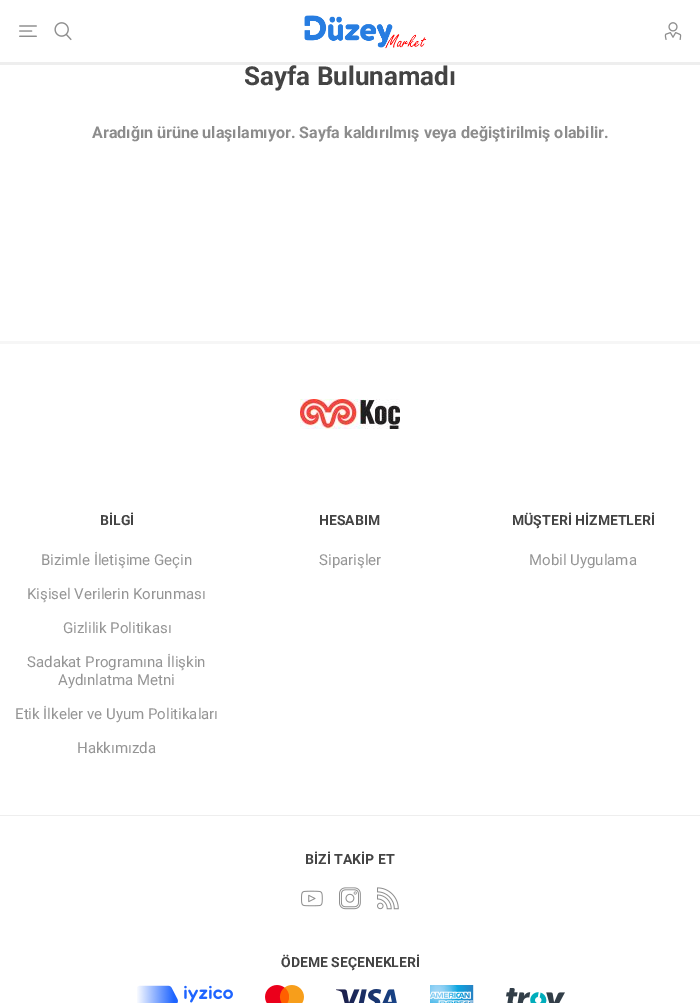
%!PS
<< /PageSize [700 1003] >> setpagedevice
/co { dup -16 bitshift 255 div exch dup -8 bitshift 255 and 255 div exch 255 and 255 div setrgbcolor } def
/fn { [ exch dup neg 0 0 3 -1 roll 0 0 ] selectfont } def
/tx { co fn moveto show } def
/bx { co rectfill } def
/im { 5 dict begin { /h /w /y /x /name } { exch def } forall
  gsave x y translate w h scale
  w h 8 [w 0 0 h 0 0] name (r) file false 3 colorimage grestore end } def
0 1003 translate 1 -1 scale
4 setmiterlimit
0 0 700 1003 16#FFFFFF bx
0 62 700 3 16#EEEEEE bx
(media/1.raw) 19 25 18 12 im
(media/2.raw) 54 22 18 19 im
(media/3.raw) 304 15 123 34 im
(media/4.raw) 664 22 18 18 im
0 341 700 3 16#F6F6F6 bx
(media/5.raw) 300 399 100 30 im
0 815 700 1 16#EEEEEE bx
(media/6.raw) 301 890 22 17 im
(media/7.raw) 339 887 22 23 im
(media/8.raw) 377 887 22 23 im
(media/9.raw) 137 985 428 18 im
(Sayfa Bulunamadı) 244 85 /Roboto-Bold 26 16#444444 tx
(Aradığın ürüne ulaşılamıyor. Sayfa kaldırılmış veya değiştirilmiş olabilir.) 92 138 /Roboto-Bold 16 16#8C8C8C tx
(BİLGİ) 100 525 /Roboto-Bold 14 16#444444 tx
(Bizimle İletişime Geçin) 41 565 /Roboto-Regular 15 16#959595 tx
(Kişisel Verilerin Korunması) 27 599 /Roboto-Regular 15 16#959595 tx
(Gizlilik Politikası) 63 633 /Roboto-Regular 15 16#959595 tx
(Sadakat Programına İlişkin) 27 667 /Roboto-Regular 15 16#959595 tx
(Aydınlatma Metni) 58 685 /Roboto-Regular 15 16#959595 tx
(Etik İlkeler ve Uyum Politikaları) 15 719 /Roboto-Regular 15 16#959595 tx
(Hakkımızda) 77 753 /Roboto-Regular 15 16#959595 tx
(HESABIM) 319 525 /Roboto-Bold 14 16#444444 tx
(Siparişler) 319 565 /Roboto-Regular 15 16#959595 tx
(MÜŞTERİ HİZMETLERİ) 512 525 /Roboto-Bold 14 16#444444 tx
(Mobil Uygulama) 529 565 /Roboto-Regular 15 16#959595 tx
(BİZİ TAKİP ET) 305 864 /Roboto-Bold 14 16#444444 tx
(ÖDEME SEÇENEKLERİ) 281 967 /Roboto-Bold 14 16#444444 tx
showpage
